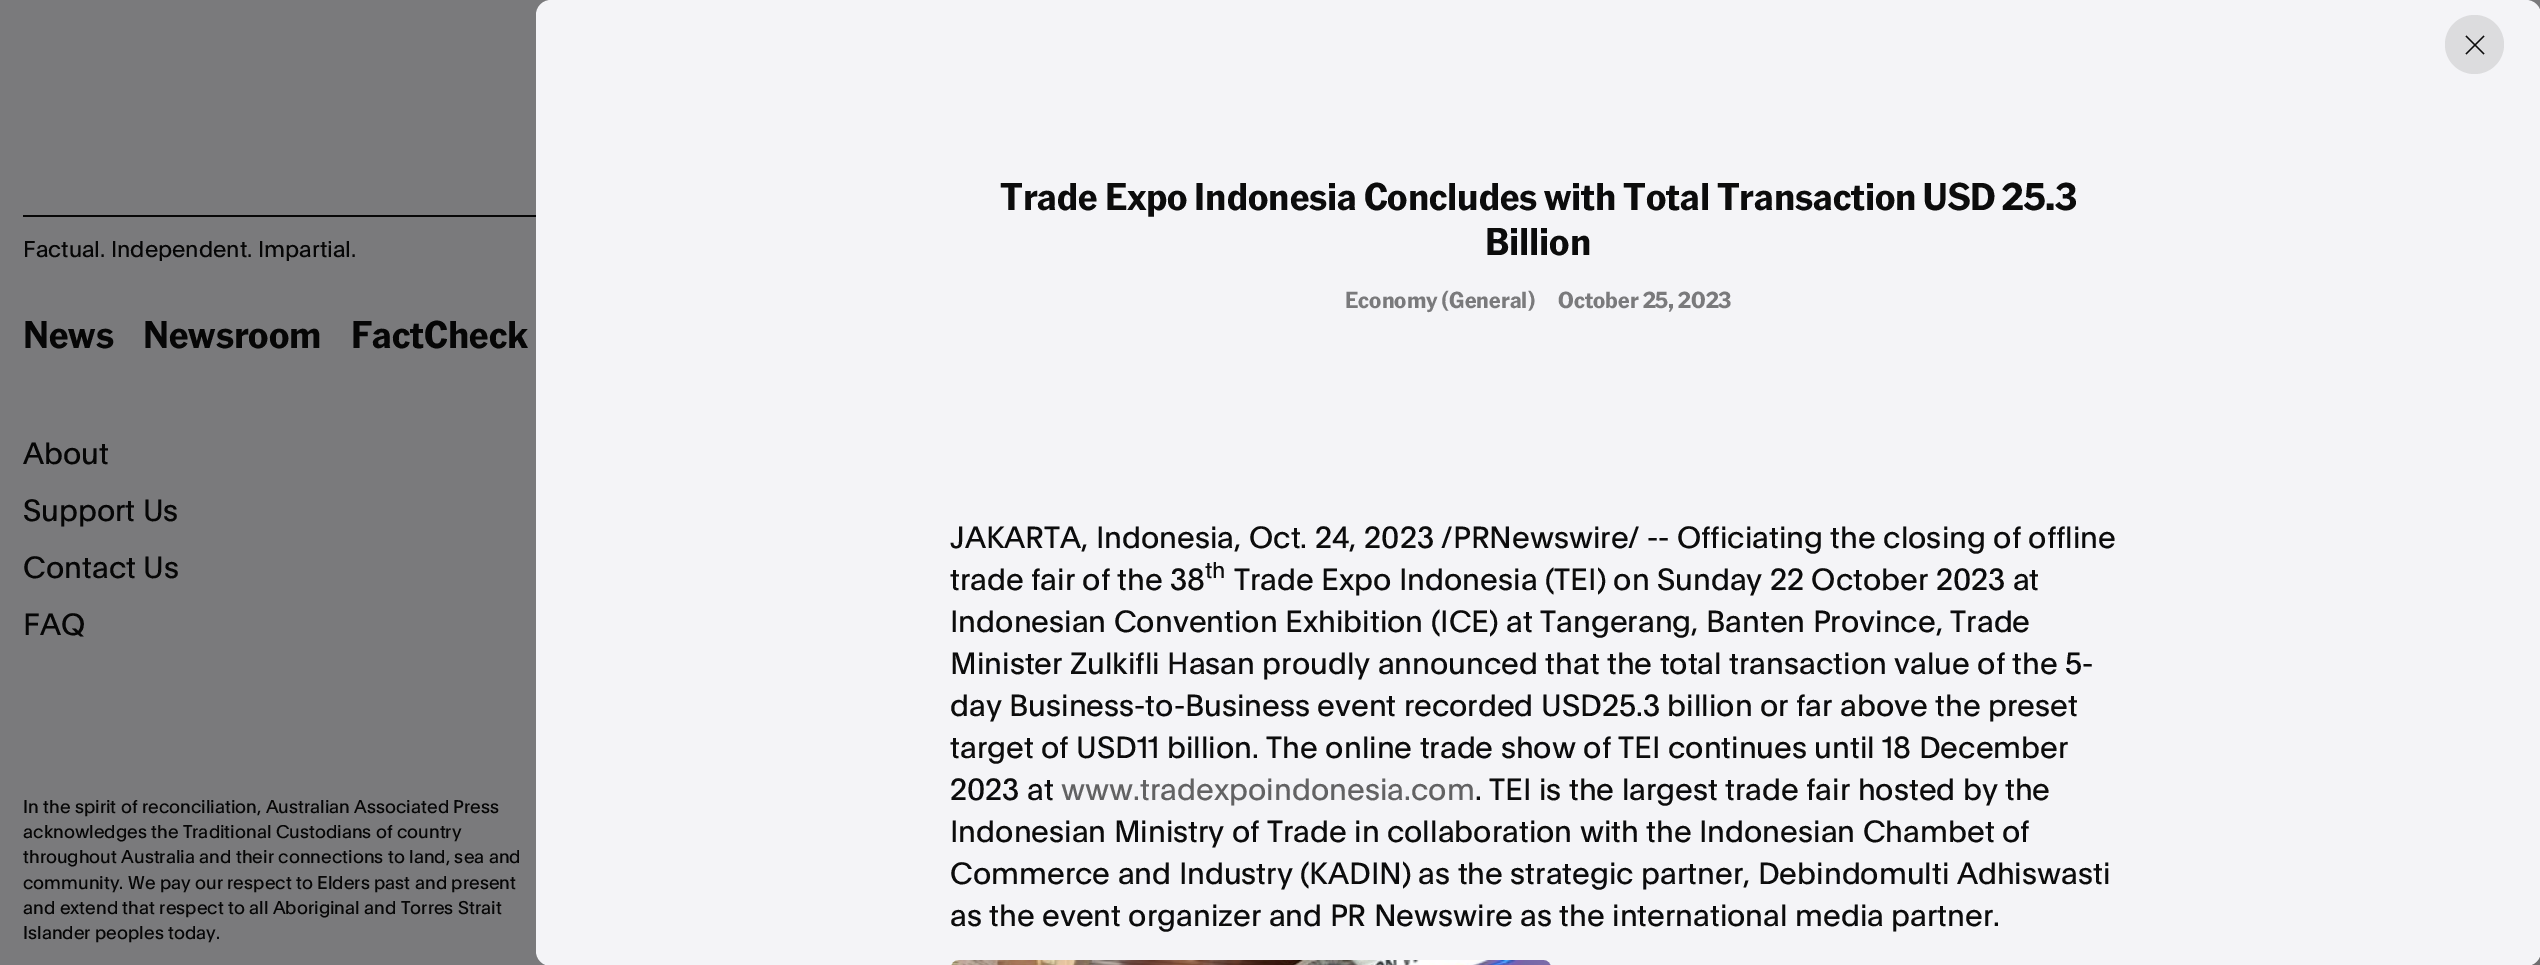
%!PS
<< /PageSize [2540 965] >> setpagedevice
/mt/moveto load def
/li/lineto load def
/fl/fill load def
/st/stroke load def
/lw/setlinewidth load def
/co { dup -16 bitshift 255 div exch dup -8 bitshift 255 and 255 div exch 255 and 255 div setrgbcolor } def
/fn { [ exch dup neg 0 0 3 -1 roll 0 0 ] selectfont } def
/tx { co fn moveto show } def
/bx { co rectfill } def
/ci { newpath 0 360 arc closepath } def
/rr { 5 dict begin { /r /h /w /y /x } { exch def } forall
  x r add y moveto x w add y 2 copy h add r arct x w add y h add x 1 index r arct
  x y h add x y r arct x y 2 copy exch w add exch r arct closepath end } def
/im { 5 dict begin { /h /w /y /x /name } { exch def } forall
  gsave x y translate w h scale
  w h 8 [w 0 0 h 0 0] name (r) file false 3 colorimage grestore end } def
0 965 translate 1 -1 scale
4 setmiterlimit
0 0 2540 965 16#7A7A7C bx
23 215 513 2 16#060606 bx
2531 956 9 9 16#6E6E6F bx
16#F4F4F7 co
536 0 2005 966 15 rr fl
16#DCDCDE co
2474.5 44.5 29.5 ci fl
16#0C0C0C co
1.2 lw
1 setlinejoin
2484 36 mt 2466 54 li 2484 54 mt 2466 36 li st
(media/1.raw) 951 960 600 5 im
(Factual. Independent. Impartial.) 23 257 /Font-Regular 22.5 16#060606 tx
(News) 23 348 /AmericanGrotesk-Bold 37.5 16#060606 tx
(Newsroom) 143 348 /AmericanGrotesk-Bold 37.5 16#060606 tx
(FactCheck) 351 348 /AmericanGrotesk-Bold 37.5 16#060606 tx
(About) 23 464 /Font-Regular 30 16#060606 tx
(Support Us) 23 521 /Font-Regular 30 16#060606 tx
(Contact Us) 23 578 /Font-Regular 30 16#060606 tx
(FAQ) 23 635 /Font-Regular 30 16#060606 tx
(In the spirit of reconciliation, Australian Associated Press) 23 813 /Font-Regular 18 16#060606 tx
(acknowledges the Traditional Custodians of country) 23 838 /Font-Regular 18 16#060606 tx
(throughout Australia and their connections to land, sea and) 23 863 /Font-Regular 18 16#060606 tx
(community. We pay our respect to Elders past and present) 23 889 /Font-Regular 18 16#060606 tx
(and extend that respect to all Aboriginal and Torres Strait) 23 914 /Font-Regular 18 16#060606 tx
(Islander peoples today.) 23 939 /Font-Regular 18 16#060606 tx
(Trade Expo Indonesia Concludes with Total Transaction USD 25.3) 1000 210 /AmericanGrotesk-Bold 37.5 16#0C0C0C tx
(Billion) 1485 255 /AmericanGrotesk-Bold 37.5 16#0C0C0C tx
(Economy \(General\)) 1345 308 /AmericanGrotesk-Bold 22.5 16#7A7A7C tx
(October 25, 2023) 1558 308 /AmericanGrotesk-Bold 22.5 16#7A7A7C tx
(JAKARTA, Indonesia, Oct. 24, 2023 /PRNewswire/ -- Officiating the closing of offline) 950 548 /Font-Regular 30 16#0C0C0C tx
(trade fair of the 38) 950 590 /Font-Regular 30 16#0C0C0C tx
(th) 1205 578 /Font-Regular 22.5 16#0C0C0C tx
(Trade Expo Indonesia \(TEI\) on Sunday 22 October 2023 at) 1234 590 /Font-Regular 30 16#0C0C0C tx
(Indonesian Convention Exhibition \(ICE\) at Tangerang, Banten Province, Trade) 950 632 /Font-Regular 30 16#0C0C0C tx
(Minister Zulkifli Hasan proudly announced that the total transaction value of the 5-) 950 674 /Font-Regular 30 16#0C0C0C tx
(day Business-to-Business event recorded USD25.3 billion or far above the preset) 950 716 /Font-Regular 30 16#0C0C0C tx
(target of USD11 billion. The online trade show of TEI continues until 18 December) 950 758 /Font-Regular 30 16#0C0C0C tx
(2023 at) 950 800 /Font-Regular 30 16#0C0C0C tx
(www.tradexpoindonesia.com) 1061 800 /Font-Regular 30 16#626263 tx
(. TEI is the largest trade fair hosted by the) 1475 800 /Font-Regular 30 16#0C0C0C tx
(Indonesian Ministry of Trade in collaboration with the Indonesian Chambet of) 950 842 /Font-Regular 30 16#0C0C0C tx
(Commerce and Industry \(KADIN\) as the strategic partner, Debindomulti Adhiswasti) 950 884 /Font-Regular 30 16#0C0C0C tx
(as the event organizer and PR Newswire as the international media partner.) 950 926 /Font-Regular 30 16#0C0C0C tx
showpage
